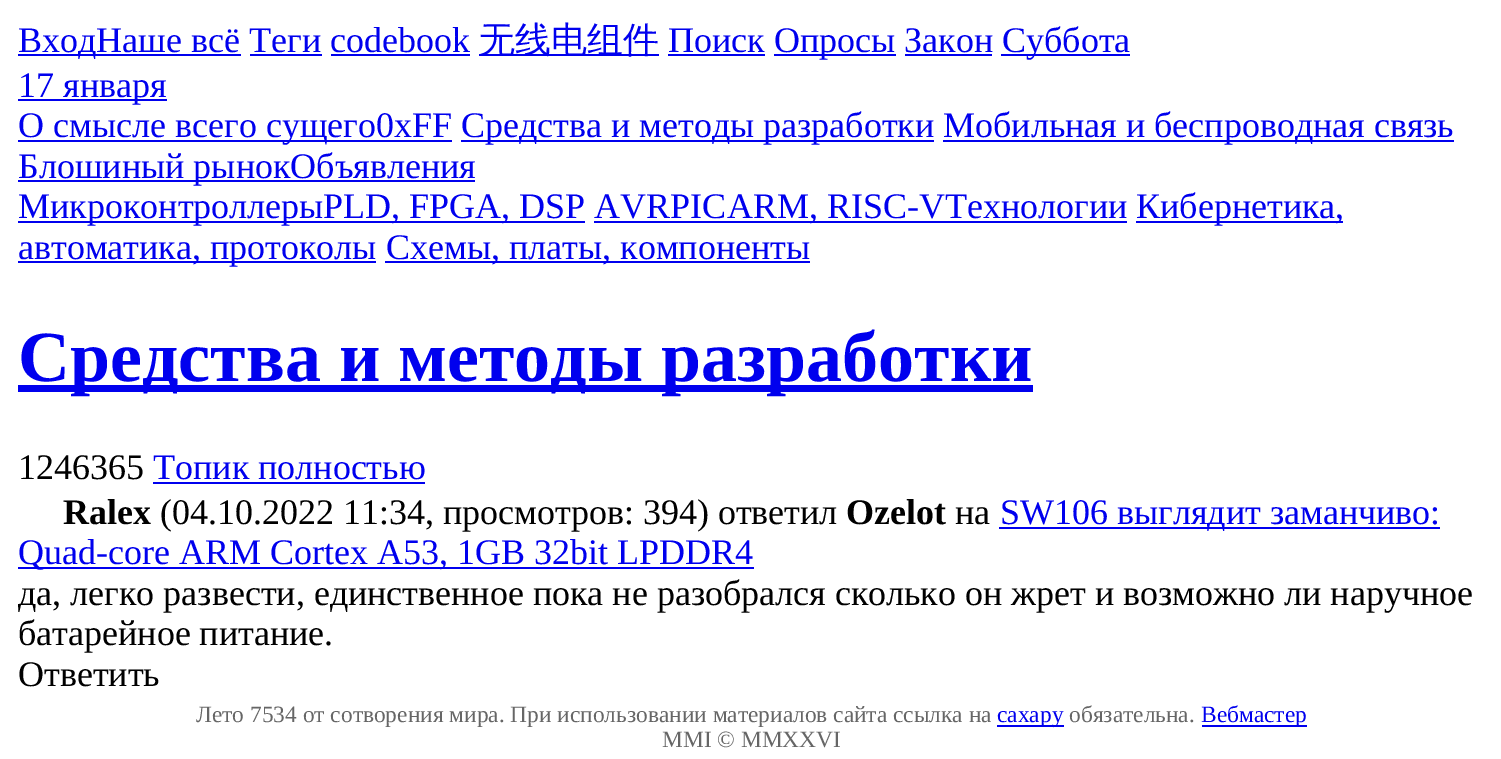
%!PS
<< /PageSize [1501 759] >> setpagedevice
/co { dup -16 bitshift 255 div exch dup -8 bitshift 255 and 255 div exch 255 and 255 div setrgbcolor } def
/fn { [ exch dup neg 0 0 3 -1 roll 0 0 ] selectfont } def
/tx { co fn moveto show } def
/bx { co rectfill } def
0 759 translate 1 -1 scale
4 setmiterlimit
0 0 1501 759 16#FFFFFF bx
18 54 223 2 16#0000EE bx
479 54 180 2 16#0000EE bx
668 54 97 2 16#0000EE bx
774 54 122 2 16#0000EE bx
1001 54 129 2 16#0000EE bx
250 54 72 2 16#0000EE bx
331 54 139 2 16#0000EE bx
905 54 87 2 16#0000EE bx
18 99 149 2 16#0000EE bx
18 140 434 2 16#0000EE bx
461 140 473 2 16#0000EE bx
943 140 511 2 16#0000EE bx
18 180 272 2 16#0000EE bx
290 180 185 2 16#0000EE bx
18 221 567 2 16#0000EE bx
1136 221 207 2 16#0000EE bx
594 221 533 2 16#0000EE bx
18 261 358 2 16#0000EE bx
385 261 425 2 16#0000EE bx
18 385 1015 7 16#0000EE bx
153 482 272 2 16#0000EE bx
999 527 441 2 16#0000EE bx
18 567 736 2 16#0000EE bx
997 725 67 2 16#0000EE bx
1202 725 105 2 16#0000EE bx
(ВходНаше всё Теги codebook) 18 52 /LiberationSerif-Regular 36 16#0000EE tx
(无线电组件) 479 52 /WenQuanYiZenHei-Medium 36 16#0000EE tx
(Поиск) 668 52 /LiberationSerif-Regular 36 16#0000EE tx
(Опросы Закон) 774 52 /LiberationSerif-Regular 36 16#0000EE tx
(Суббота) 1002 52 /LiberationSerif-Regular 36 16#0000EE tx
(17 января) 18 97 /LiberationSerif-Regular 36 16#0000EE tx
(О смысле всего сущего0xFF) 18 137 /LiberationSerif-Regular 36 16#0000EE tx
(Средства и методы разработки) 461 137 /LiberationSerif-Regular 36 16#0000EE tx
(Мобильная и беспроводная связь) 943 137 /LiberationSerif-Regular 36 16#0000EE tx
(Блошиный рынокОбъявления) 18 178 /LiberationSerif-Regular 36 16#0000EE tx
(МикроконтроллерыPLD, FPGA, DSP AVRPIC) 18 218 /LiberationSerif-Regular 36 16#0000EE tx
(ARM, RISC-VТехнологии) 727 218 /LiberationSerif-Regular 36 16#0000EE tx
(Кибернетика,) 1136 218 /LiberationSerif-Regular 36 16#0000EE tx
(автоматика, протоколы) 18 259 /LiberationSerif-Regular 36 16#0000EE tx
(Схемы, платы, компоненты) 386 259 /LiberationSerif-Regular 36 16#0000EE tx
(Средства и методы разработки) 18 381 /LiberationSerif-Bold 72 16#0000EE tx
(1246365) 18 479 /LiberationSerif-Regular 36 16#000000 tx
(Топик полностью) 153 479 /LiberationSerif-Regular 36 16#0000EE tx
(Ralex) 63 524 /LiberationSerif-Bold 36 16#000000 tx
(\(04.10.2022 11:34, просмотров: 394\) ответил) 160 524 /LiberationSerif-Regular 36 16#000000 tx
(Ozelot) 846 524 /LiberationSerif-Bold 36 16#000000 tx
(на) 955 524 /LiberationSerif-Regular 36 16#000000 tx
(SW106 выглядит заманчиво:) 1000 524 /LiberationSerif-Regular 36 16#0000EE tx
(Quad-core ARM Cortex A53, 1GB 32bit LPDDR4) 18 564 /LiberationSerif-Regular 36 16#0000EE tx
(да, легко развести, единственное пока не разобрался сколько он жрет и возможно ли наручное) 18 605 /LiberationSerif-Regular 36 16#000000 tx
(батарейное питание.) 18 645 /LiberationSerif-Regular 36 16#000000 tx
(Ответить) 18 686 /LiberationSerif-Regular 36 16#000000 tx
(Лето 7534 от сотворения мира. При использовании материалов сайта ссылка на) 196 722 /LiberationSerif-Regular 23.4 16#666666 tx
(caxapу) 997 722 /LiberationSerif-Regular 23.4 16#0000EE tx
(обязательна.) 1069 722 /LiberationSerif-Regular 23.4 16#666666 tx
(Вебмастер) 1201 722 /LiberationSerif-Regular 23.4 16#0000EE tx
(MMI © MMXXVI) 662 747 /LiberationSerif-Regular 23.4 16#666666 tx
showpage
